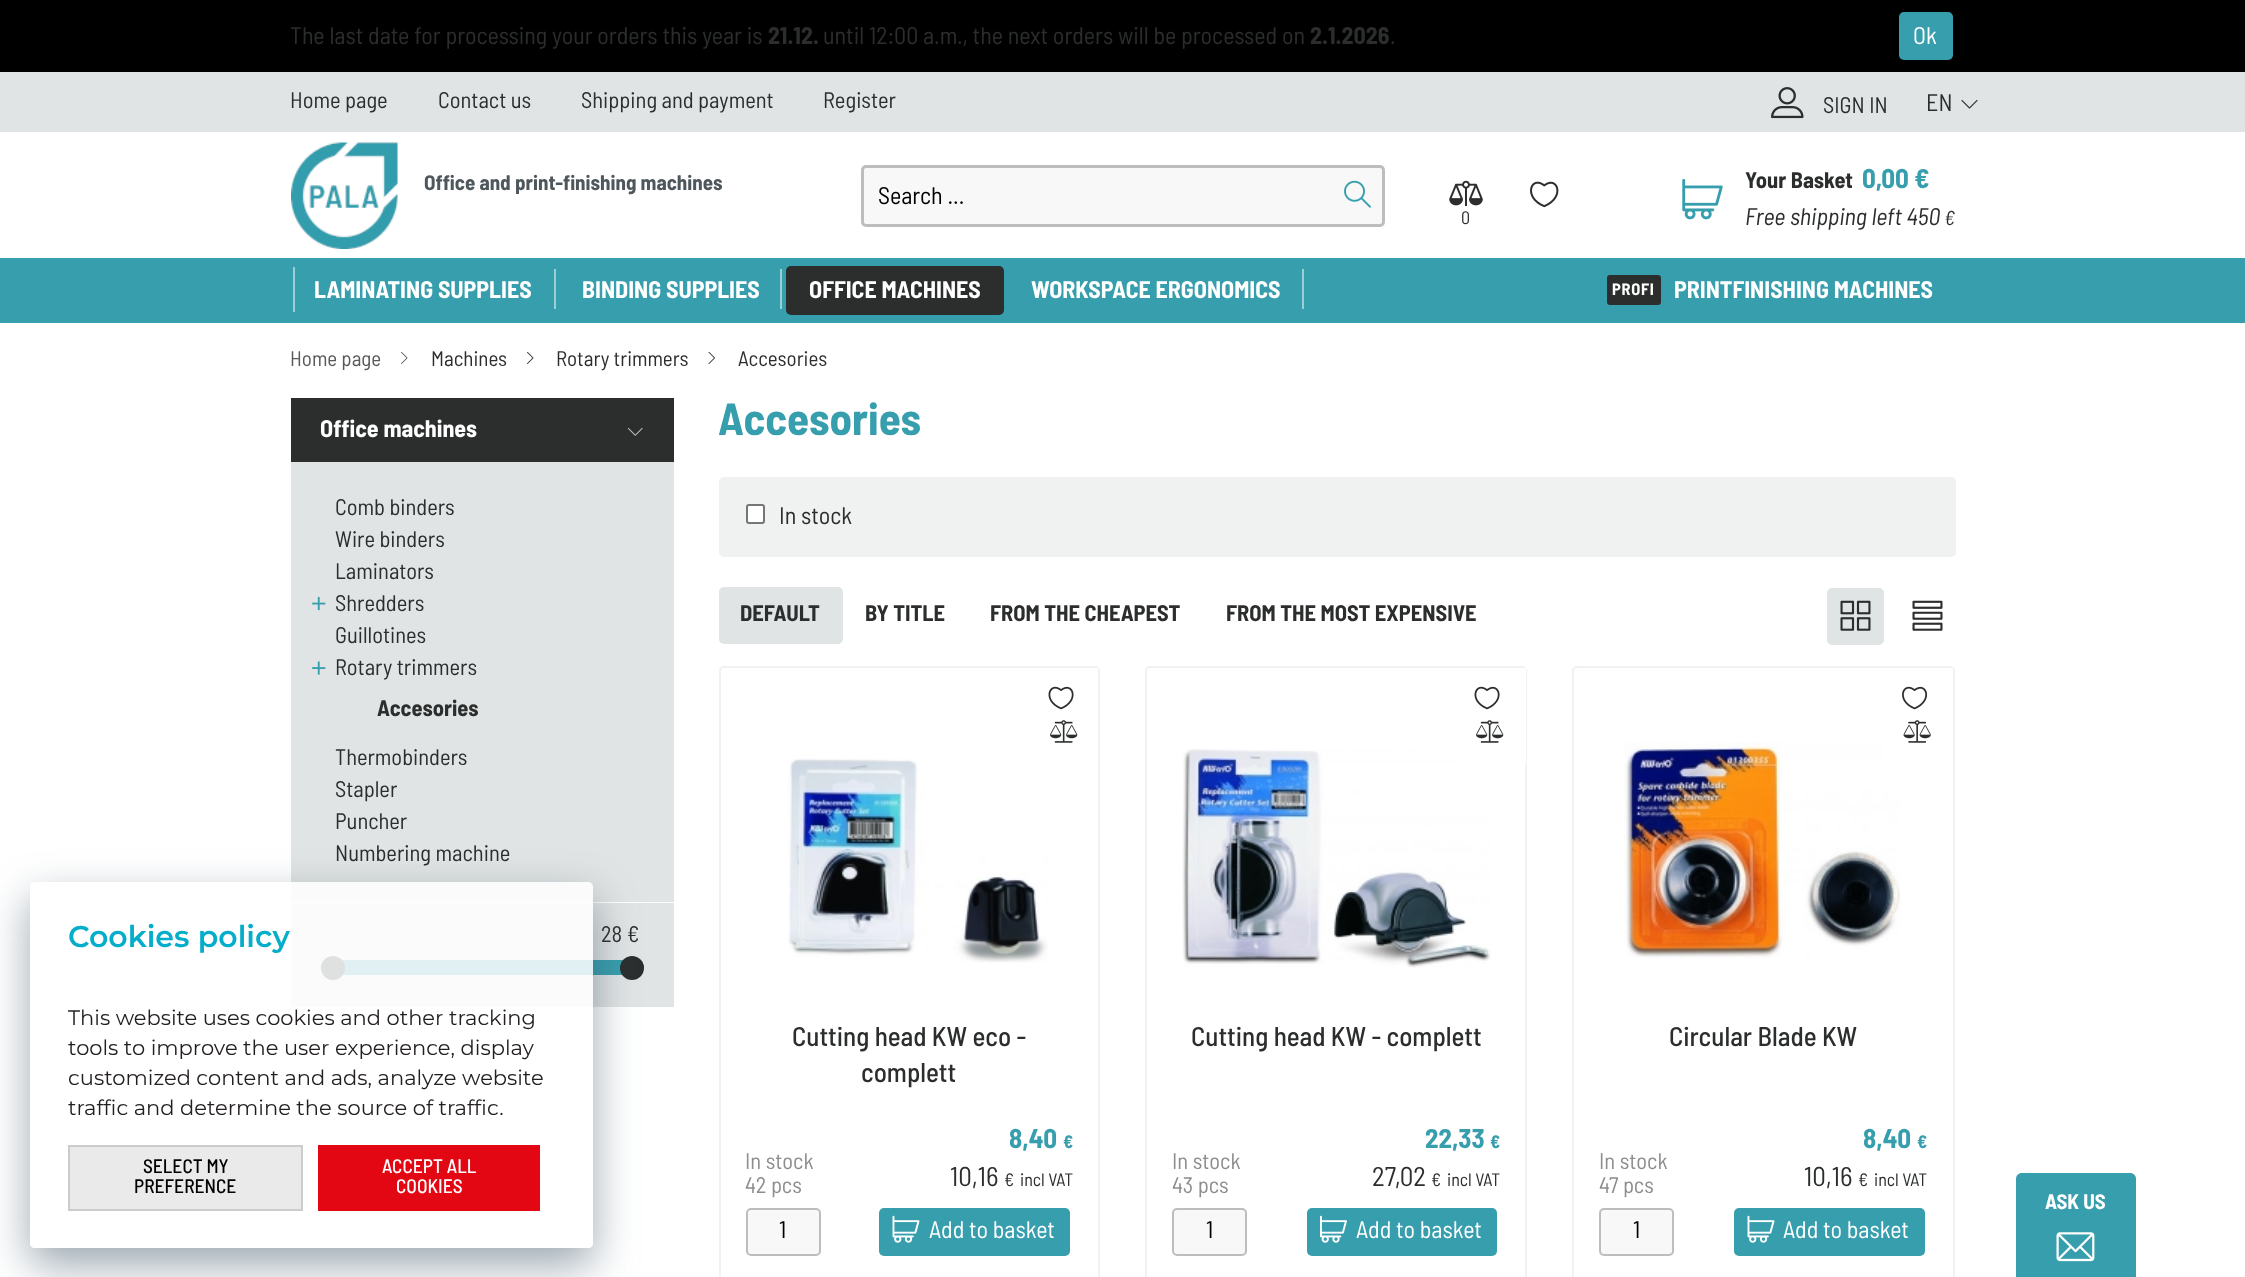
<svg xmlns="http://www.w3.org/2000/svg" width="2245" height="1277">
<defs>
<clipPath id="clip1"><path d="M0 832h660v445h-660zm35 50h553c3 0 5 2 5 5v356c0 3-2 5-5 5h-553c-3 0-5-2-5-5v-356c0-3 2-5 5-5z" clip-rule="evenodd"/></clipPath>
</defs>
<rect width="100%" height="100%" fill="#fff"/>
<rect width="2245" height="72" fill="#000"/>
<text x="290" y="44" style="font-family:Barlow Semi Condensed;font-size:24px;fill:#2c2e2e">The last date for processing your orders this year is</text>
<text x="768" y="44" style="font-family:Barlow Semi Condensed;font-size:24px;font-weight:bold;fill:#2c2e2e">21.12.</text>
<text x="823" y="44" style="font-family:Barlow Semi Condensed;font-size:24px;fill:#2c2e2e">until 12:00 a.m., the next orders will be processed on</text>
<text x="1310" y="44" style="font-family:Barlow Semi Condensed;font-size:24px;font-weight:bold;fill:#2c2e2e">2.1.2026</text>
<text x="1390" y="44" style="font-family:Barlow Semi Condensed;font-size:24px;fill:#2c2e2e">.</text>
<rect x="1899" y="12" width="54" height="48" rx="5" fill="#379ead"/>
<text x="1913" y="44" style="font-family:Barlow Semi Condensed;font-size:24px;fill:#fff">Ok</text>
<rect y="72" width="2245" height="60" fill="#e1e4e4"/>
<text x="290" y="108" style="font-family:Barlow Semi Condensed;font-size:22.5px;fill:#2c2e2e">Home page</text>
<text x="438" y="108" style="font-family:Barlow Semi Condensed;font-size:22.5px;fill:#2c2e2e">Contact us</text>
<text x="581" y="108" style="font-family:Barlow Semi Condensed;font-size:22.5px;fill:#2c2e2e">Shipping and payment</text>
<text x="823" y="108" style="font-family:Barlow Semi Condensed;font-size:22.5px;fill:#2c2e2e">Register</text>
<image x="1771" y="87" width="33" height="32" href="media/1.png"/>
<text x="1823" y="113" style="font-family:Barlow Semi Condensed;font-size:22.5px;fill:#2c2e2e">SIGN IN</text>
<text x="1926" y="111" style="font-family:Barlow Semi Condensed;font-size:24px;fill:#2c2e2e">EN</text>
<image x="1961" y="100" width="17" height="9" href="media/2.png"/>
<image x="291" y="142" width="107" height="107" href="media/3.png"/>
<text x="424" y="190" style="font-family:Barlow Semi Condensed;font-size:21px;font-weight:bold;fill:#4e575c">Office and print-finishing machines</text>
<rect x="862.5" y="166.5" width="521" height="59" rx="3.5" fill="#f8f8f8" stroke="#bcbebe" stroke-width="3"/>
<text x="878" y="204" style="font-family:Barlow Semi Condensed;font-size:24px;fill:#000">Search ...</text>
<image x="1344" y="180" width="27" height="28" href="media/4.png"/>
<image x="1530" y="181" width="29" height="27" href="media/5.png"/>
<image x="1682" y="178" width="41" height="42" href="media/6.png"/>
<text x="1745" y="188" style="font-family:Barlow Semi Condensed;font-size:22.5px;font-weight:bold;fill:#2c2e2e">Your Basket</text>
<text x="1862" y="188" style="font-family:Barlow Semi Condensed;font-size:27px;font-weight:bold;fill:#379ead">0,00 €</text>
<text x="1745" y="225" style="font-family:Barlow Semi Condensed;font-size:24px;font-style:italic;fill:#2c2e2e">Free shipping left 450</text>
<text x="1944" y="225" style="font-family:Barlow Semi Condensed;font-size:20px;font-style:italic;fill:#2c2e2e">€</text>
<image x="1449" y="180" width="34" height="27" href="media/7.png"/>
<rect x="1455" y="206" width="23" height="22" rx="11" fill="#fff"/>
<text x="1461" y="224" style="font-family:Barlow Semi Condensed;font-size:18px;fill:#2c2e2e">0</text>
<rect y="258" width="2245" height="65" fill="#379ead"/>
<rect x="293" y="267" width="2" height="45" fill="#9cced5"/>
<text x="314" y="298" style="font-family:Barlow Semi Condensed;font-size:24px;font-weight:bold;fill:#fff">LAMINATING SUPPLIES</text>
<rect x="554" y="269" width="2" height="40" fill="#9cced5"/>
<text x="582" y="298" style="font-family:Barlow Semi Condensed;font-size:24px;font-weight:bold;fill:#fff">BINDING SUPPLIES</text>
<rect x="780" y="269" width="2" height="40" fill="#9cced5"/>
<rect x="786" y="266" width="218" height="49" rx="5" fill="#2c2e2e"/>
<text x="809" y="298" style="font-family:Barlow Semi Condensed;font-size:24px;font-weight:bold;fill:#fff">OFFICE MACHINES</text>
<text x="1031" y="298" style="font-family:Barlow Semi Condensed;font-size:24px;font-weight:bold;fill:#fff">WORKSPACE ERGONOMICS</text>
<rect x="1302" y="269" width="2" height="40" fill="#9cced5"/>
<rect x="1607" y="275" width="54" height="30" rx="3" fill="#2c2e2e"/>
<text x="1612" y="295" style="font-family:Barlow Semi Condensed;font-size:16.5px;font-weight:bold;letter-spacing:0.75px;fill:#fff">PROFI</text>
<text x="1674" y="298" style="font-family:Barlow Semi Condensed;font-size:24px;font-weight:bold;fill:#fff">PRINTFINISHING MACHINES</text>
<text x="290" y="366" style="font-family:Barlow Semi Condensed;font-size:21px;fill:#585959">Home page</text>
<image x="401" y="351" width="7" height="13" href="media/8.png"/>
<text x="431" y="366" style="font-family:Barlow Semi Condensed;font-size:21px;fill:#2c2e2e">Machines</text>
<image x="527" y="351" width="7" height="13" href="media/9.png"/>
<text x="556" y="366" style="font-family:Barlow Semi Condensed;font-size:21px;fill:#2c2e2e">Rotary trimmers</text>
<image x="708" y="351" width="7" height="13" href="media/10.png"/>
<text x="738" y="366" style="font-family:Barlow Semi Condensed;font-size:21px;fill:#2c2e2e">Accesories</text>
<rect x="291" y="462" width="383" height="440" fill="#e1e4e4"/>
<rect x="291" y="398" width="383" height="64" fill="#2c2e2e"/>
<text x="320" y="437" style="font-family:Barlow Semi Condensed;font-size:24px;font-weight:bold;fill:#fff">Office machines</text>
<image x="627" y="427" width="16" height="9" href="media/11.png"/>
<text x="335" y="515" style="font-family:Barlow Semi Condensed;font-size:22.5px;fill:#2c2e2e">Comb binders</text>
<text x="335" y="547" style="font-family:Barlow Semi Condensed;font-size:22.5px;fill:#2c2e2e">Wire binders</text>
<text x="335" y="579" style="font-family:Barlow Semi Condensed;font-size:22.5px;fill:#2c2e2e">Laminators</text>
<image x="312" y="597" width="14" height="14" href="media/12.png"/>
<text x="335" y="611" style="font-family:Barlow Semi Condensed;font-size:22.5px;fill:#2c2e2e">Shredders</text>
<text x="335" y="643" style="font-family:Barlow Semi Condensed;font-size:22.5px;fill:#2c2e2e">Guillotines</text>
<image x="312" y="661" width="14" height="14" href="media/13.png"/>
<text x="335" y="675" style="font-family:Barlow Semi Condensed;font-size:22.5px;fill:#2c2e2e">Rotary trimmers</text>
<text x="377" y="716" style="font-family:Barlow Semi Condensed;font-size:22.5px;font-weight:bold;fill:#2c2e2e">Accesories</text>
<text x="335" y="765" style="font-family:Barlow Semi Condensed;font-size:22.5px;fill:#2c2e2e">Thermobinders</text>
<text x="335" y="797" style="font-family:Barlow Semi Condensed;font-size:22.5px;fill:#2c2e2e">Stapler</text>
<text x="335" y="829" style="font-family:Barlow Semi Condensed;font-size:22.5px;fill:#2c2e2e">Puncher</text>
<text x="335" y="861" style="font-family:Barlow Semi Condensed;font-size:22.5px;fill:#2c2e2e">Numbering machine</text>
<rect x="291" y="903" width="383" height="104" fill="#e1e4e4"/>
<text x="601" y="942" style="font-family:Barlow Semi Condensed;font-size:22.5px;fill:#2c2e2e">28 €</text>
<rect x="321" y="960" width="323" height="15" rx="7.5" fill="#379ead"/>
<circle cx="333" cy="968" r="12" fill="#2c2e2e"/>
<circle cx="632" cy="968" r="12" fill="#2c2e2e"/>
<text x="718" y="435" style="font-family:Barlow Semi Condensed;font-size:45px;font-weight:bold;fill:#379ead">Accesories</text>
<rect x="719" y="477" width="1237" height="80" rx="5" fill="#f0f1f1"/>
<rect x="747" y="505" width="17" height="18" rx="2" fill="#fff" stroke="#767676" stroke-width="2"/>
<text x="779" y="524" style="font-family:Barlow Semi Condensed;font-size:24px;fill:#2c2e2e">In stock</text>
<rect x="719" y="587" width="124" height="57" rx="5" fill="#e1e4e4"/>
<text x="740" y="621" style="font-family:Barlow Semi Condensed;font-size:22.5px;font-weight:bold;fill:#2c2e2e">DEFAULT</text>
<text x="865" y="621" style="font-family:Barlow Semi Condensed;font-size:22.5px;font-weight:bold;fill:#2c2e2e">BY TITLE</text>
<text x="990" y="621" style="font-family:Barlow Semi Condensed;font-size:22.5px;font-weight:bold;fill:#2c2e2e">FROM THE CHEAPEST</text>
<text x="1226" y="621" style="font-family:Barlow Semi Condensed;font-size:22.5px;font-weight:bold;fill:#2c2e2e">FROM THE MOST EXPENSIVE</text>
<rect x="1827" y="588" width="57" height="57" rx="5" fill="#e1e4e4"/>
<image x="1840" y="600" width="31" height="31" href="media/14.png"/>
<image x="1912" y="600" width="31" height="31" href="media/15.png"/>
<rect x="720" y="667" width="379" height="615" rx="4" fill="none" stroke="#f0f1f1" stroke-width="2"/>
<image x="788" y="758" width="260" height="205" href="media/18.png"/>
<path d="M1028 668h70v97h-65c-3 0-5-2-5-5z" fill="#fff"/>
<image x="1048" y="686" width="26" height="24" href="media/16.png"/>
<image x="1050" y="720" width="28" height="23" href="media/17.png"/>
<text x="792" y="1046" style="font-family:Barlow Semi Condensed;font-size:27px;font-weight:500;fill:#2c2e2e">Cutting head KW eco -</text>
<text x="861" y="1082" style="font-family:Barlow Semi Condensed;font-size:27px;font-weight:500;fill:#2c2e2e">complett</text>
<text x="745" y="1169" style="font-family:Barlow Semi Condensed;font-size:22.5px;fill:#8c8e8e">In stock</text>
<text x="745" y="1193" style="font-family:Barlow Semi Condensed;font-size:22.5px;fill:#8c8e8e">42 pcs</text>
<text x="1009" y="1148" style="font-family:Barlow Semi Condensed;font-size:27px;font-weight:bold;fill:#379ead">8,40</text>
<text x="1063" y="1148" style="font-family:Barlow Semi Condensed;font-size:18px;font-weight:bold;fill:#379ead">€</text>
<text x="950" y="1186" style="font-family:Barlow Semi Condensed;font-size:27px;fill:#2c2e2e">10,16</text>
<text x="1004" y="1186" style="font-family:Barlow Semi Condensed;font-size:18px;fill:#2c2e2e">€</text>
<text x="1020" y="1186" style="font-family:Barlow Semi Condensed;font-size:18px;fill:#2c2e2e">incl VAT</text>
<rect x="747" y="1209" width="73" height="46" rx="4" fill="#f8f8f8" stroke="#bcbebe" stroke-width="2"/>
<text x="779" y="1238" style="font-family:Barlow Semi Condensed;font-size:24px;fill:#000">1</text>
<rect x="879" y="1208" width="191" height="48" rx="5" fill="#379ead"/>
<image x="892" y="1215" width="28" height="28" href="media/19.png"/>
<text x="929" y="1238" style="font-family:Barlow Semi Condensed;font-size:24px;fill:#fff">Add to basket</text>
<rect x="1146" y="667" width="380" height="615" rx="4" fill="none" stroke="#f0f1f1" stroke-width="2"/>
<image x="1182" y="749" width="309" height="219" href="media/20.png"/>
<path d="M1455 668h71v97h-66c-3 0-5-2-5-5z" fill="#fff"/>
<image x="1474" y="686" width="26" height="24" href="media/16.png"/>
<image x="1476" y="720" width="28" height="23" href="media/17.png"/>
<text x="1191" y="1046" style="font-family:Barlow Semi Condensed;font-size:27px;font-weight:500;fill:#2c2e2e">Cutting head KW - complett</text>
<text x="1172" y="1169" style="font-family:Barlow Semi Condensed;font-size:22.5px;fill:#8c8e8e">In stock</text>
<text x="1172" y="1193" style="font-family:Barlow Semi Condensed;font-size:22.5px;fill:#8c8e8e">43 pcs</text>
<text x="1425" y="1148" style="font-family:Barlow Semi Condensed;font-size:27px;font-weight:bold;fill:#379ead">22,33</text>
<text x="1490" y="1148" style="font-family:Barlow Semi Condensed;font-size:18px;font-weight:bold;fill:#379ead">€</text>
<text x="1372" y="1186" style="font-family:Barlow Semi Condensed;font-size:27px;fill:#2c2e2e">27,02</text>
<text x="1431" y="1186" style="font-family:Barlow Semi Condensed;font-size:18px;fill:#2c2e2e">€</text>
<text x="1447" y="1186" style="font-family:Barlow Semi Condensed;font-size:18px;fill:#2c2e2e">incl VAT</text>
<rect x="1173" y="1209" width="73" height="46" rx="4" fill="#f8f8f8" stroke="#bcbebe" stroke-width="2"/>
<text x="1206" y="1238" style="font-family:Barlow Semi Condensed;font-size:24px;fill:#000">1</text>
<rect x="1307" y="1208" width="190" height="48" rx="5" fill="#379ead"/>
<image x="1320" y="1215" width="27" height="28" href="media/21.png"/>
<text x="1356" y="1238" style="font-family:Barlow Semi Condensed;font-size:24px;fill:#fff">Add to basket</text>
<rect x="1573" y="667" width="381" height="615" rx="4" fill="none" stroke="#f0f1f1" stroke-width="2"/>
<image x="1624" y="742" width="277" height="216" href="media/24.png"/>
<path d="M1883 668h70v97h-65c-3 0-5-2-5-5z" fill="#fff"/>
<image x="1902" y="686" width="26" height="24" href="media/22.png"/>
<image x="1903" y="720" width="28" height="23" href="media/23.png"/>
<text x="1669" y="1046" style="font-family:Barlow Semi Condensed;font-size:27px;font-weight:500;fill:#2c2e2e">Circular Blade KW</text>
<text x="1599" y="1169" style="font-family:Barlow Semi Condensed;font-size:22.5px;fill:#8c8e8e">In stock</text>
<text x="1599" y="1193" style="font-family:Barlow Semi Condensed;font-size:22.5px;fill:#8c8e8e">47 pcs</text>
<text x="1863" y="1148" style="font-family:Barlow Semi Condensed;font-size:27px;font-weight:bold;fill:#379ead">8,40</text>
<text x="1917" y="1148" style="font-family:Barlow Semi Condensed;font-size:18px;font-weight:bold;fill:#379ead">€</text>
<text x="1804" y="1186" style="font-family:Barlow Semi Condensed;font-size:27px;fill:#2c2e2e">10,16</text>
<text x="1858" y="1186" style="font-family:Barlow Semi Condensed;font-size:18px;fill:#2c2e2e">€</text>
<text x="1874" y="1186" style="font-family:Barlow Semi Condensed;font-size:18px;fill:#2c2e2e">incl VAT</text>
<rect x="1600" y="1209" width="73" height="46" rx="4" fill="#f8f8f8" stroke="#bcbebe" stroke-width="2"/>
<text x="1633" y="1238" style="font-family:Barlow Semi Condensed;font-size:24px;fill:#000">1</text>
<rect x="1734" y="1208" width="191" height="48" rx="5" fill="#379ead"/>
<image x="1747" y="1215" width="28" height="28" href="media/19.png"/>
<text x="1783" y="1238" style="font-family:Barlow Semi Condensed;font-size:24px;fill:#fff">Add to basket</text>
<g clip-path="url(#clip1)">
<rect x="30" y="899" width="563" height="366" rx="5" fill="#38506180" filter="blur(22px)"/>
</g>
<rect x="30" y="882" width="563" height="366" rx="5" fill="#ffffffd9"/>
<text x="68" y="947" style="font-family:Montserrat;font-size:30px;font-weight:600;fill:#04adc9">Cookies policy</text>
<text x="68" y="1025" style="font-family:Montserrat;font-size:21px;fill:#231f20">This website uses cookies and other tracking</text>
<text x="68" y="1055" style="font-family:Montserrat;font-size:21px;fill:#231f20">tools to improve the user experience, display</text>
<text x="68" y="1085" style="font-family:Montserrat;font-size:21px;fill:#231f20">customized content and ads, analyze website</text>
<text x="68" y="1115" style="font-family:Montserrat;font-size:21px;fill:#231f20">traffic and determine the source of traffic.</text>
<rect x="69" y="1146" width="233" height="64" fill="#eaeaea" stroke="#ccc" stroke-width="2"/>
<text x="143" y="1173" style="font-family:Barlow Semi Condensed;font-size:19.5px;font-weight:500;fill:#000">SELECT MY</text>
<text x="134" y="1193" style="font-family:Barlow Semi Condensed;font-size:19.5px;font-weight:500;fill:#000">PREFERENCE</text>
<rect x="318" y="1145" width="222" height="66" fill="#e30613"/>
<text x="382" y="1173" style="font-family:Barlow Semi Condensed;font-size:19.5px;font-weight:500;fill:#fff">ACCEPT ALL</text>
<text x="396" y="1193" style="font-family:Barlow Semi Condensed;font-size:19.5px;font-weight:500;fill:#fff">COOKIES</text>
<path d="M2022 1173h108c3.5 0 6 2.5 6 6v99h-120v-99c0-3.5 2.5-6 6-6z" fill="#379ead"/>
<text x="2045" y="1209" style="font-family:Barlow Semi Condensed;font-size:21px;font-weight:bold;fill:#fff">ASK US</text>
<image x="2056" y="1232" width="39" height="30" href="media/25.png"/>
</svg>
